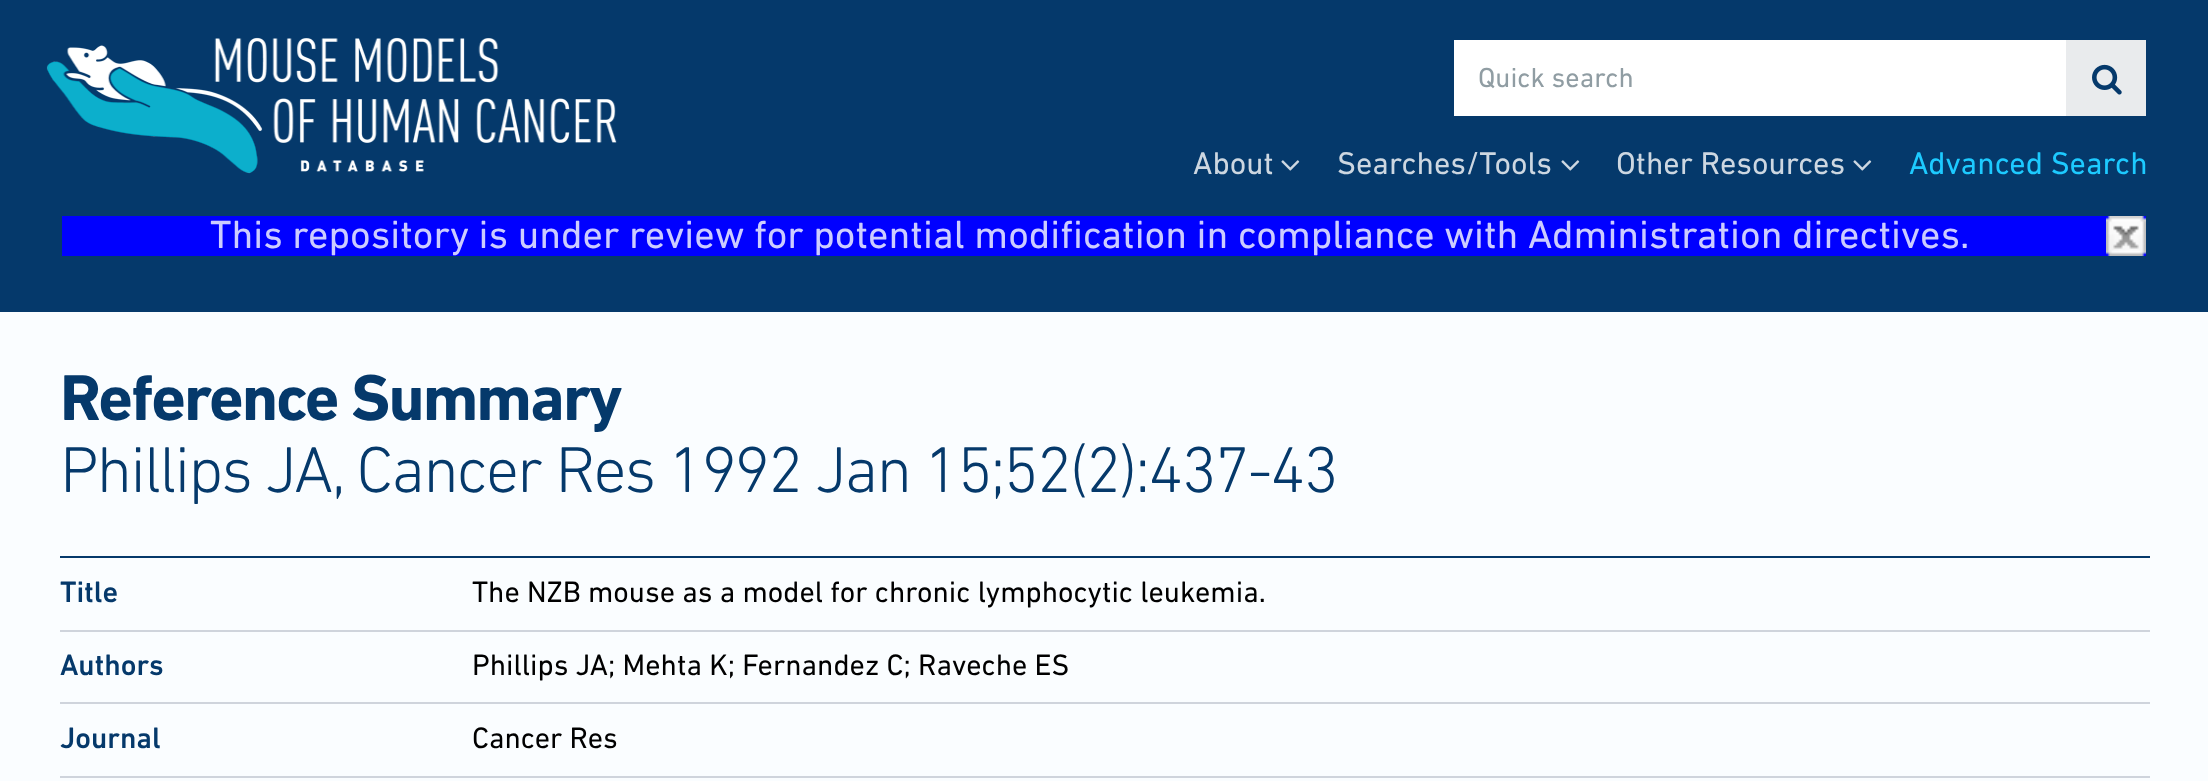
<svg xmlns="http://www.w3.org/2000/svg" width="2208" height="781">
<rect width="100%" height="100%" fill="#fafdff"/>
<rect width="2208" height="312" fill="#05396b"/>
<image x="46" y="37" width="571" height="137" href="media/1.png"/>
<rect x="1454" y="40" width="612" height="76" fill="#fff"/>
<text x="1478" y="87" style="font-family:DIN Next;font-size:28px;fill:#909da3">Quick search</text>
<rect x="2066" y="40" width="80" height="76" fill="#e9ebed"/>
<image x="2092" y="64" width="30" height="31" href="media/2.png"/>
<text x="1193" y="174" style="font-family:DIN Next;font-size:32px;fill:#cdd7e1">About</text>
<image x="1281" y="160" width="19" height="11" href="media/3.png"/>
<text x="1337" y="174" style="font-family:DIN Next;font-size:32px;fill:#cdd7e1">Searches/Tools</text>
<image x="1561" y="160" width="19" height="11" href="media/3.png"/>
<text x="1616" y="174" style="font-family:DIN Next;font-size:32px;fill:#cdd7e1">Other Resources</text>
<image x="1853" y="160" width="19" height="11" href="media/3.png"/>
<text x="1909" y="174" style="font-family:DIN Next;font-size:32px;fill:#1dcaff">Advanced Search</text>
<rect x="62" y="216" width="2084" height="40" fill="#00f"/>
<text x="210" y="248" style="font-family:DIN Next;font-size:40px;fill:#ccf">This repository is under review for potential modification in compliance with Administration directives.</text>
<image x="2106" y="216" width="40" height="40" href="media/4.png"/>
<text x="60" y="420" style="font-family:DIN Next;font-size:66px;font-weight:bold;letter-spacing:-2px;fill:#05396b">Reference Summary</text>
<text x="60" y="492" style="font-family:DIN Next;font-size:66px;font-weight:300;letter-spacing:-2px;fill:#05396b">Phillips JA, Cancer Res 1992 Jan 15;52(2):437-43</text>
<text x="60" y="602" style="font-family:DIN Next;font-size:30px;font-weight:500;fill:#05396b">Title</text>
<rect x="60" y="556" width="2090" height="2" fill="#05396b"/>
<text x="472" y="602" style="font-family:DIN Next;font-size:30px;fill:#000">The NZB mouse as a model for chronic lymphocytic leukemia.</text>
<text x="60" y="675" style="font-family:DIN Next;font-size:30px;font-weight:500;fill:#05396b">Authors</text>
<rect x="60" y="630" width="2090" height="2" fill="#cfd4dc"/>
<text x="472" y="675" style="font-family:DIN Next;font-size:30px;fill:#000">Phillips JA; Mehta K; Fernandez C; Raveche ES</text>
<text x="60" y="748" style="font-family:DIN Next;font-size:30px;font-weight:500;fill:#05396b">Journal</text>
<rect x="60" y="702" width="2090" height="2" fill="#cfd4dc"/>
<text x="472" y="748" style="font-family:DIN Next;font-size:30px;fill:#000">Cancer Res</text>
<rect x="60" y="776" width="2090" height="2" fill="#cfd4dc"/>
</svg>
